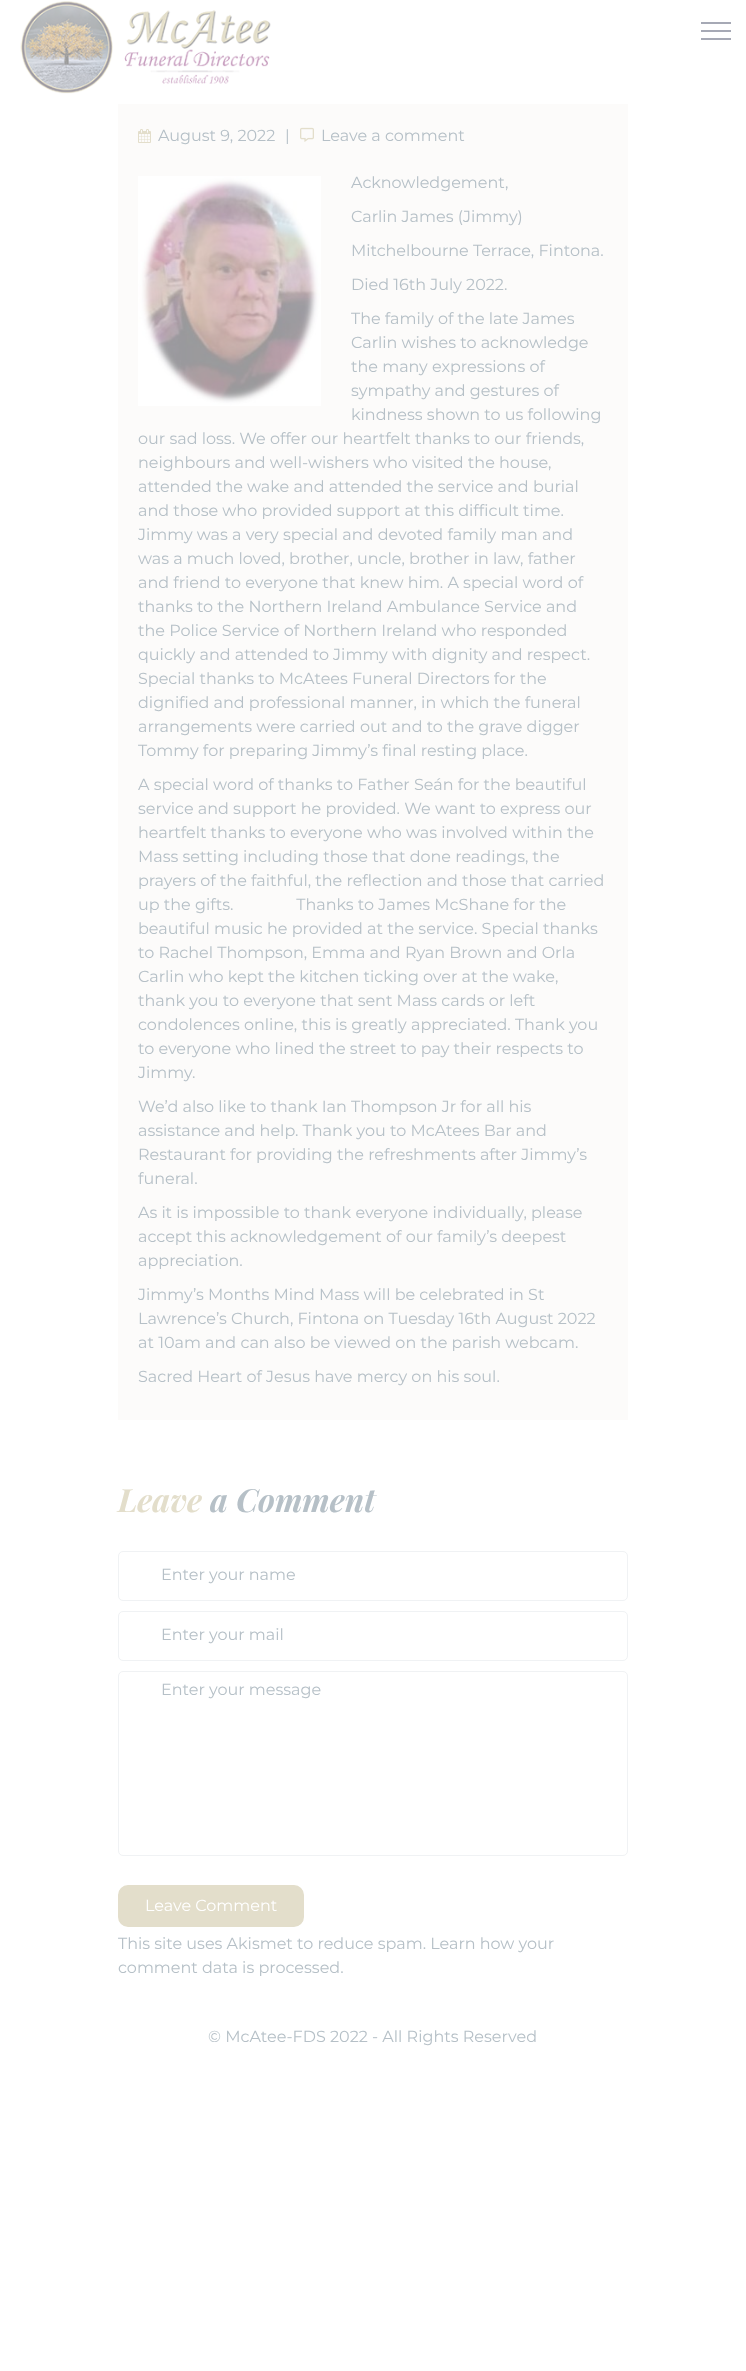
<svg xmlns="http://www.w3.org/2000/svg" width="746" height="2371">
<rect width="100%" height="100%" fill="#fff"/>
<image x="20" y="1" width="251" height="93" href="media/1.png"/>
<rect x="701" y="22" width="30" height="2" fill="#a6a9b5"/>
<rect x="701" y="38" width="30" height="2" fill="#a6a9b5"/>
<rect x="701" y="30" width="30" height="2" fill="#a6a9b5"/>
<rect x="118" y="104" width="510" height="1316" fill="#fcfbfa"/>
<image x="138" y="129" width="13" height="14" href="media/2.png"/>
<text x="158" y="141" style="font-family:Montserrat;font-size:16px;fill:#b6c0c7">August 9, 2022</text>
<text x="285" y="141" style="font-family:Montserrat;font-size:16px;fill:#b6c0c7">|</text>
<image x="300" y="127" width="14" height="15" href="media/3.png"/>
<text x="321" y="141" style="font-family:Montserrat;font-size:16px;fill:#b6c0c7">Leave a comment</text>
<image x="138" y="176" width="183" height="230" href="media/4.png"/>
<text x="351" y="188" style="font-family:Montserrat;font-size:16px;fill:#b6c0c7">Acknowledgement,</text>
<text x="351" y="222" style="font-family:Montserrat;font-size:16px;fill:#b6c0c7">Carlin James (Jimmy)</text>
<text x="351" y="256" style="font-family:Montserrat;font-size:16px;fill:#b6c0c7">Mitchelbourne Terrace, Fintona.</text>
<text x="351" y="290" style="font-family:Montserrat;font-size:16px;fill:#b6c0c7">Died 16th July 2022.</text>
<text x="351" y="324" style="font-family:Montserrat;font-size:16px;fill:#b6c0c7">The family of the late James</text>
<text x="351" y="348" style="font-family:Montserrat;font-size:16px;fill:#b6c0c7">Carlin wishes to acknowledge</text>
<text x="351" y="372" style="font-family:Montserrat;font-size:16px;fill:#b6c0c7">the many expressions of</text>
<text x="351" y="396" style="font-family:Montserrat;font-size:16px;fill:#b6c0c7">sympathy and gestures of</text>
<text x="351" y="420" style="font-family:Montserrat;font-size:16px;fill:#b6c0c7">kindness shown to us following</text>
<text x="138" y="444" style="font-family:Montserrat;font-size:16px;fill:#b6c0c7">our sad loss. We offer our heartfelt thanks to our friends,</text>
<text x="138" y="468" style="font-family:Montserrat;font-size:16px;fill:#b6c0c7">neighbours and well-wishers who visited the house,</text>
<text x="138" y="492" style="font-family:Montserrat;font-size:16px;fill:#b6c0c7">attended the wake and attended the service and burial</text>
<text x="138" y="516" style="font-family:Montserrat;font-size:16px;fill:#b6c0c7">and those who provided support at this difficult time.</text>
<text x="138" y="540" style="font-family:Montserrat;font-size:16px;fill:#b6c0c7">Jimmy was a very special and devoted family man and</text>
<text x="138" y="564" style="font-family:Montserrat;font-size:16px;fill:#b6c0c7">was a much loved, brother, uncle, brother in law, father</text>
<text x="138" y="588" style="font-family:Montserrat;font-size:16px;fill:#b6c0c7">and friend to everyone that knew him. A special word of</text>
<text x="138" y="612" style="font-family:Montserrat;font-size:16px;fill:#b6c0c7">thanks to the Northern Ireland Ambulance Service and</text>
<text x="138" y="636" style="font-family:Montserrat;font-size:16px;fill:#b6c0c7">the Police Service of Northern Ireland who responded</text>
<text x="138" y="660" style="font-family:Montserrat;font-size:16px;fill:#b6c0c7">quickly and attended to Jimmy with dignity and respect.</text>
<text x="138" y="684" style="font-family:Montserrat;font-size:16px;fill:#b6c0c7">Special thanks to McAtees Funeral Directors for the</text>
<text x="138" y="708" style="font-family:Montserrat;font-size:16px;fill:#b6c0c7">dignified and professional manner, in which the funeral</text>
<text x="138" y="732" style="font-family:Montserrat;font-size:16px;fill:#b6c0c7">arrangements were carried out and to the grave digger</text>
<text x="138" y="756" style="font-family:Montserrat;font-size:16px;fill:#b6c0c7">Tommy for preparing Jimmy’s final resting place.</text>
<text x="138" y="790" style="font-family:Montserrat;font-size:16px;fill:#b6c0c7">A special word of thanks to Father Seán for the beautiful</text>
<text x="138" y="814" style="font-family:Montserrat;font-size:16px;fill:#b6c0c7">service and support he provided. We want to express our</text>
<text x="138" y="838" style="font-family:Montserrat;font-size:16px;fill:#b6c0c7">heartfelt thanks to everyone who was involved within the</text>
<text x="138" y="862" style="font-family:Montserrat;font-size:16px;fill:#b6c0c7">Mass setting including those that done readings, the</text>
<text x="138" y="886" style="font-family:Montserrat;font-size:16px;fill:#b6c0c7">prayers of the faithful, the reflection and those that carried</text>
<text x="138" y="910" style="font-family:Montserrat;font-size:16px;fill:#b6c0c7" xml:space="preserve">up the gifts.               Thanks to James McShane for the</text>
<text x="138" y="934" style="font-family:Montserrat;font-size:16px;fill:#b6c0c7">beautiful music he provided at the service. Special thanks</text>
<text x="138" y="958" style="font-family:Montserrat;font-size:16px;fill:#b6c0c7">to Rachel Thompson, Emma and Ryan Brown and Orla</text>
<text x="138" y="982" style="font-family:Montserrat;font-size:16px;fill:#b6c0c7">Carlin who kept the kitchen ticking over at the wake,</text>
<text x="138" y="1006" style="font-family:Montserrat;font-size:16px;fill:#b6c0c7">thank you to everyone that sent Mass cards or left</text>
<text x="138" y="1030" style="font-family:Montserrat;font-size:16px;fill:#b6c0c7">condolences online, this is greatly appreciated. Thank you</text>
<text x="138" y="1054" style="font-family:Montserrat;font-size:16px;fill:#b6c0c7">to everyone who lined the street to pay their respects to</text>
<text x="138" y="1078" style="font-family:Montserrat;font-size:16px;fill:#b6c0c7">Jimmy.</text>
<text x="138" y="1112" style="font-family:Montserrat;font-size:16px;fill:#b6c0c7">We’d also like to thank Ian Thompson Jr for all his</text>
<text x="138" y="1136" style="font-family:Montserrat;font-size:16px;fill:#b6c0c7">assistance and help. Thank you to McAtees Bar and</text>
<text x="138" y="1160" style="font-family:Montserrat;font-size:16px;fill:#b6c0c7">Restaurant for providing the refreshments after Jimmy’s</text>
<text x="138" y="1184" style="font-family:Montserrat;font-size:16px;fill:#b6c0c7">funeral.</text>
<text x="138" y="1218" style="font-family:Montserrat;font-size:16px;fill:#b6c0c7">As it is impossible to thank everyone individually, please</text>
<text x="138" y="1242" style="font-family:Montserrat;font-size:16px;fill:#b6c0c7">accept this acknowledgement of our family’s deepest</text>
<text x="138" y="1266" style="font-family:Montserrat;font-size:16px;fill:#b6c0c7">appreciation.</text>
<text x="138" y="1300" style="font-family:Montserrat;font-size:16px;fill:#b6c0c7">Jimmy’s Months Mind Mass will be celebrated in St</text>
<text x="138" y="1324" style="font-family:Montserrat;font-size:16px;fill:#b6c0c7">Lawrence’s Church, Fintona on Tuesday 16th August 2022</text>
<text x="138" y="1348" style="font-family:Montserrat;font-size:16px;fill:#b6c0c7">at 10am and can also be viewed on the parish webcam.</text>
<text x="138" y="1382" style="font-family:Montserrat;font-size:16px;fill:#b6c0c7">Sacred Heart of Jesus have mercy on his soul.</text>
<text x="118" y="1512" style="font-family:Playfair Display;font-size:32px;font-weight:bold;font-style:italic;fill:#e3decb">Leave</text>
<text x="210" y="1512" style="font-family:Playfair Display;font-size:32px;font-weight:bold;font-style:italic;fill:#b6c0c7">a Comment</text>
<rect x="118.5" y="1551.5" width="509" height="49" rx="4.5" fill="none" stroke="#f0f2f4"/>
<text x="161" y="1580" style="font-family:Montserrat;font-size:16px;fill:#b6c0c7">Enter your name</text>
<rect x="118.5" y="1611.5" width="509" height="49" rx="4.5" fill="none" stroke="#f0f2f4"/>
<text x="161" y="1640" style="font-family:Montserrat;font-size:16px;fill:#b6c0c7">Enter your mail</text>
<rect x="118.5" y="1671.5" width="509" height="184" rx="4.5" fill="none" stroke="#f0f2f4"/>
<text x="161" y="1695" style="font-family:Montserrat;font-size:16px;fill:#b6c0c7">Enter your message</text>
<rect x="119" y="1886" width="184" height="40" rx="9" fill="#e3decb" stroke="#e3decb" stroke-width="2"/>
<text x="145" y="1911" style="font-family:Montserrat;font-size:16px;fill:#fff">Leave Comment</text>
<text x="118" y="1949" style="font-family:Montserrat;font-size:16px;fill:#b6c0c7">This site uses Akismet to reduce spam. Learn how your</text>
<text x="118" y="1973" style="font-family:Montserrat;font-size:16px;fill:#b6c0c7">comment data is processed.</text>
<text x="208" y="2042" style="font-family:Montserrat;font-size:16px;fill:#b6c0c7">© McAtee-FDS 2022 - All Rights Reserved</text>
</svg>
